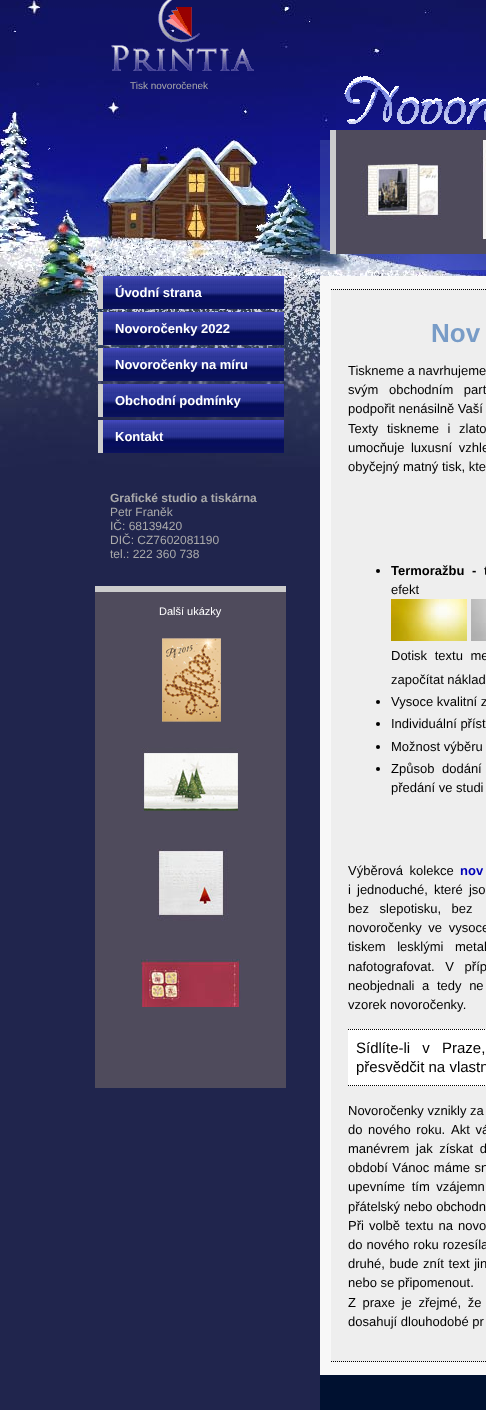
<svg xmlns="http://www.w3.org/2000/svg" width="486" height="1410">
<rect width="100%" height="100%" fill="#20254d"/>
<image x="0" y="0" width="486" height="467" href="media/1.png"/>
<image x="111" y="0" width="143" height="71" href="media/2.png"/>
<text x="130" y="89" style="font-family:Liberation Sans;font-size:10px;fill:#aaa">Tisk novoročenek</text>
<image x="344" y="76" width="142" height="48" href="media/3.png"/>
<rect x="320" y="140" width="166" height="130" fill="#8cabd033"/>
<rect x="336" y="130" width="150" height="124" fill="#4f4b5c"/>
<rect x="330" y="130" width="6" height="124" fill="#ccc"/>
<image x="361" y="164" width="80" height="56" href="media/4.png"/>
<image x="480" y="140" width="6" height="100" href="media/5.png"/>
<image x="103" y="276" width="181" height="33" href="media/6.png"/>
<rect x="98" y="276" width="5" height="33" fill="#ccc"/>
<text x="115" y="297" style="font-family:Liberation Sans;font-size:13px;font-weight:bold;fill:#fff">Úvodní strana</text>
<image x="103" y="312" width="181" height="33" href="media/6.png"/>
<rect x="98" y="312" width="5" height="33" fill="#ccc"/>
<text x="115" y="333" style="font-family:Liberation Sans;font-size:13px;font-weight:bold;fill:#fff">Novoročenky 2022</text>
<image x="103" y="348" width="181" height="33" href="media/6.png"/>
<rect x="98" y="348" width="5" height="33" fill="#ccc"/>
<text x="115" y="369" style="font-family:Liberation Sans;font-size:13px;font-weight:bold;fill:#fff">Novoročenky na míru</text>
<image x="103" y="384" width="181" height="33" href="media/6.png"/>
<rect x="98" y="384" width="5" height="33" fill="#ccc"/>
<text x="115" y="405" style="font-family:Liberation Sans;font-size:13px;font-weight:bold;fill:#fff">Obchodní podmínky</text>
<image x="103" y="420" width="181" height="33" href="media/6.png"/>
<rect x="98" y="420" width="5" height="33" fill="#ccc"/>
<text x="115" y="441" style="font-family:Liberation Sans;font-size:13px;font-weight:bold;fill:#fff">Kontakt</text>
<rect x="320" y="276" width="166" height="1099" fill="#f8f8f8"/>
<rect x="331" y="289" width="155" height="1073" fill="#eee"/>
<path d="M331 289.5h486" fill="none" stroke="#000" stroke-dasharray="1 1"/>
<path d="M331 1361.5h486" fill="none" stroke="#000" stroke-dasharray="1 1"/>
<text x="431" y="342" style="font-family:Liberation Sans;font-size:26px;font-weight:bold;fill:#789cc7">Nov</text>
<text x="348" y="375" style="font-family:Liberation Sans;font-size:13px;fill:#000">Tiskneme a navrhujeme</text>
<text x="348" y="394" word-spacing="7" style="font-family:Liberation Sans;font-size:13px;fill:#000">svým obchodním part</text>
<text x="348" y="413" style="font-family:Liberation Sans;font-size:13px;fill:#000">podpořit nenásilně Vaší</text>
<text x="348" y="433" word-spacing="5" style="font-family:Liberation Sans;font-size:13px;fill:#000">Texty tiskneme i zlato</text>
<text x="348" y="452" word-spacing="3" style="font-family:Liberation Sans;font-size:13px;fill:#000">umocňuje luxusní vzhle</text>
<text x="348" y="471" style="font-family:Liberation Sans;font-size:13px;fill:#000">obyčejný matný tisk, kte</text>
<circle cx="378" cy="571" r="2" fill="#000"/>
<text x="391" y="575" word-spacing="4" style="font-family:Liberation Sans;font-size:13px;font-weight:bold;fill:#000">Termoražbu - t</text>
<text x="391" y="594" style="font-family:Liberation Sans;font-size:13px;fill:#000">efekt</text>
<image x="391" y="599" width="76" height="42" href="media/7.png"/>
<image x="471" y="599" width="15" height="42" href="media/8.png"/>
<text x="391" y="660" word-spacing="4" style="font-family:Liberation Sans;font-size:13px;fill:#000">Dotisk textu me</text>
<text x="391" y="684" style="font-family:Liberation Sans;font-size:13px;fill:#000">započítat náklad</text>
<circle cx="378" cy="702" r="2" fill="#000"/>
<text x="391" y="706" style="font-family:Liberation Sans;font-size:13px;fill:#000">Vysoce kvalitní z</text>
<circle cx="378" cy="724" r="2" fill="#000"/>
<text x="391" y="728" style="font-family:Liberation Sans;font-size:13px;fill:#000">Individuální příst</text>
<circle cx="378" cy="747" r="2" fill="#000"/>
<text x="391" y="751" style="font-family:Liberation Sans;font-size:13px;fill:#000">Možnost výběru</text>
<circle cx="378" cy="769" r="2" fill="#000"/>
<text x="391" y="773" word-spacing="4" style="font-family:Liberation Sans;font-size:13px;fill:#000">Způsob dodání</text>
<text x="391" y="792" style="font-family:Liberation Sans;font-size:13px;fill:#000">předání ve studi</text>
<text x="348" y="875" word-spacing="3" style="font-family:Liberation Sans;font-size:13px;fill:#000">Výběrová kolekce</text>
<text x="460" y="875" style="font-family:Liberation Sans;font-size:13px;font-weight:bold;fill:#0002b7">nov</text>
<text x="348" y="894" word-spacing="2.5" style="font-family:Liberation Sans;font-size:13px;fill:#000">i jednoduché, které jso</text>
<text x="348" y="913" word-spacing="7" style="font-family:Liberation Sans;font-size:13px;fill:#000">bez slepotisku, bez</text>
<text x="348" y="932" word-spacing="3" style="font-family:Liberation Sans;font-size:13px;fill:#000">novoročenky ve vysoce</text>
<text x="348" y="951" word-spacing="8" style="font-family:Liberation Sans;font-size:13px;fill:#000">tiskem lesklými metal</text>
<text x="348" y="971" word-spacing="7" style="font-family:Liberation Sans;font-size:13px;fill:#000">nafotografovat. V příp</text>
<text x="348" y="990" word-spacing="4" style="font-family:Liberation Sans;font-size:13px;fill:#000">neobjednali a tedy ne</text>
<text x="348" y="1009" style="font-family:Liberation Sans;font-size:13px;fill:#000">vzorek novoročenky.</text>
<rect x="348" y="1029" width="138" height="57" fill="#fff"/>
<path d="M348 1029.5h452" fill="none" stroke="#000" stroke-dasharray="1 1"/>
<path d="M348 1085.5h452" fill="none" stroke="#000" stroke-dasharray="1 1"/>
<text x="356" y="1053" word-spacing="8" style="font-family:Liberation Sans;font-size:15px;fill:#000">Sídlíte-li v Praze,</text>
<text x="356" y="1072" style="font-family:Liberation Sans;font-size:15px;fill:#000">přesvědčit na vlastn</text>
<text x="348" y="1115" style="font-family:Liberation Sans;font-size:13px;fill:#000">Novoročenky vznikly za</text>
<text x="348" y="1134" word-spacing="2" style="font-family:Liberation Sans;font-size:13px;fill:#000">do nového roku.</text>
<text x="451" y="1134" word-spacing="2" style="font-family:Liberation Sans;font-size:13px;fill:#000">Akt vá</text>
<text x="348" y="1153" word-spacing="3" style="font-family:Liberation Sans;font-size:13px;fill:#000">manévrem jak získat d</text>
<text x="348" y="1172" word-spacing="1" style="font-family:Liberation Sans;font-size:13px;fill:#000">období Vánoc máme sn</text>
<text x="348" y="1191" word-spacing="3" style="font-family:Liberation Sans;font-size:13px;fill:#000">upevníme tím vzájemn</text>
<text x="348" y="1211" style="font-family:Liberation Sans;font-size:13px;fill:#000">přátelský nebo obchodn</text>
<text x="348" y="1230" word-spacing="1.5" style="font-family:Liberation Sans;font-size:13px;fill:#000">Při volbě textu na novo</text>
<text x="348" y="1249" word-spacing="0.5" style="font-family:Liberation Sans;font-size:13px;fill:#000">do nového roku rozesíla</text>
<text x="348" y="1268" word-spacing="1" style="font-family:Liberation Sans;font-size:13px;fill:#000">druhé, bude znít text jin</text>
<text x="348" y="1287" style="font-family:Liberation Sans;font-size:13px;fill:#000">nebo se připomenout.</text>
<text x="348" y="1307" word-spacing="3" style="font-family:Liberation Sans;font-size:13px;fill:#000">Z praxe je zřejmé, že</text>
<text x="348" y="1326" style="font-family:Liberation Sans;font-size:13px;fill:#000">dosahují dlouhodobé pr</text>
<rect x="320" y="1375" width="166" height="35" fill="#001130"/>
<text x="110" y="502" style="font-family:Liberation Sans;font-size:12px;font-weight:bold;fill:#aaa">Grafické studio a tiskárna</text>
<text x="110" y="516" style="font-family:Liberation Sans;font-size:12px;fill:#aaa">Petr Franěk</text>
<text x="110" y="530" style="font-family:Liberation Sans;font-size:12px;fill:#aaa">IČ: 68139420</text>
<text x="110" y="544" style="font-family:Liberation Sans;font-size:12px;fill:#aaa">DIČ: CZ7602081190</text>
<text x="110" y="558" style="font-family:Liberation Sans;font-size:12px;fill:#aaa">tel.: 222 360 738</text>
<rect x="95" y="592" width="191" height="496" fill="#4f4b5c"/>
<rect x="95" y="586" width="191" height="6" fill="#ccc"/>
<text x="159" y="615" style="font-family:Liberation Sans;font-size:11px;fill:#fff">Další ukázky</text>
<image x="162" y="637" width="59" height="87" href="media/9.png"/>
<image x="141" y="747" width="98" height="64" href="media/10.png"/>
<image x="157" y="849" width="72" height="72" href="media/11.png"/>
<image x="141" y="959" width="100" height="48" href="media/12.png"/>
</svg>
